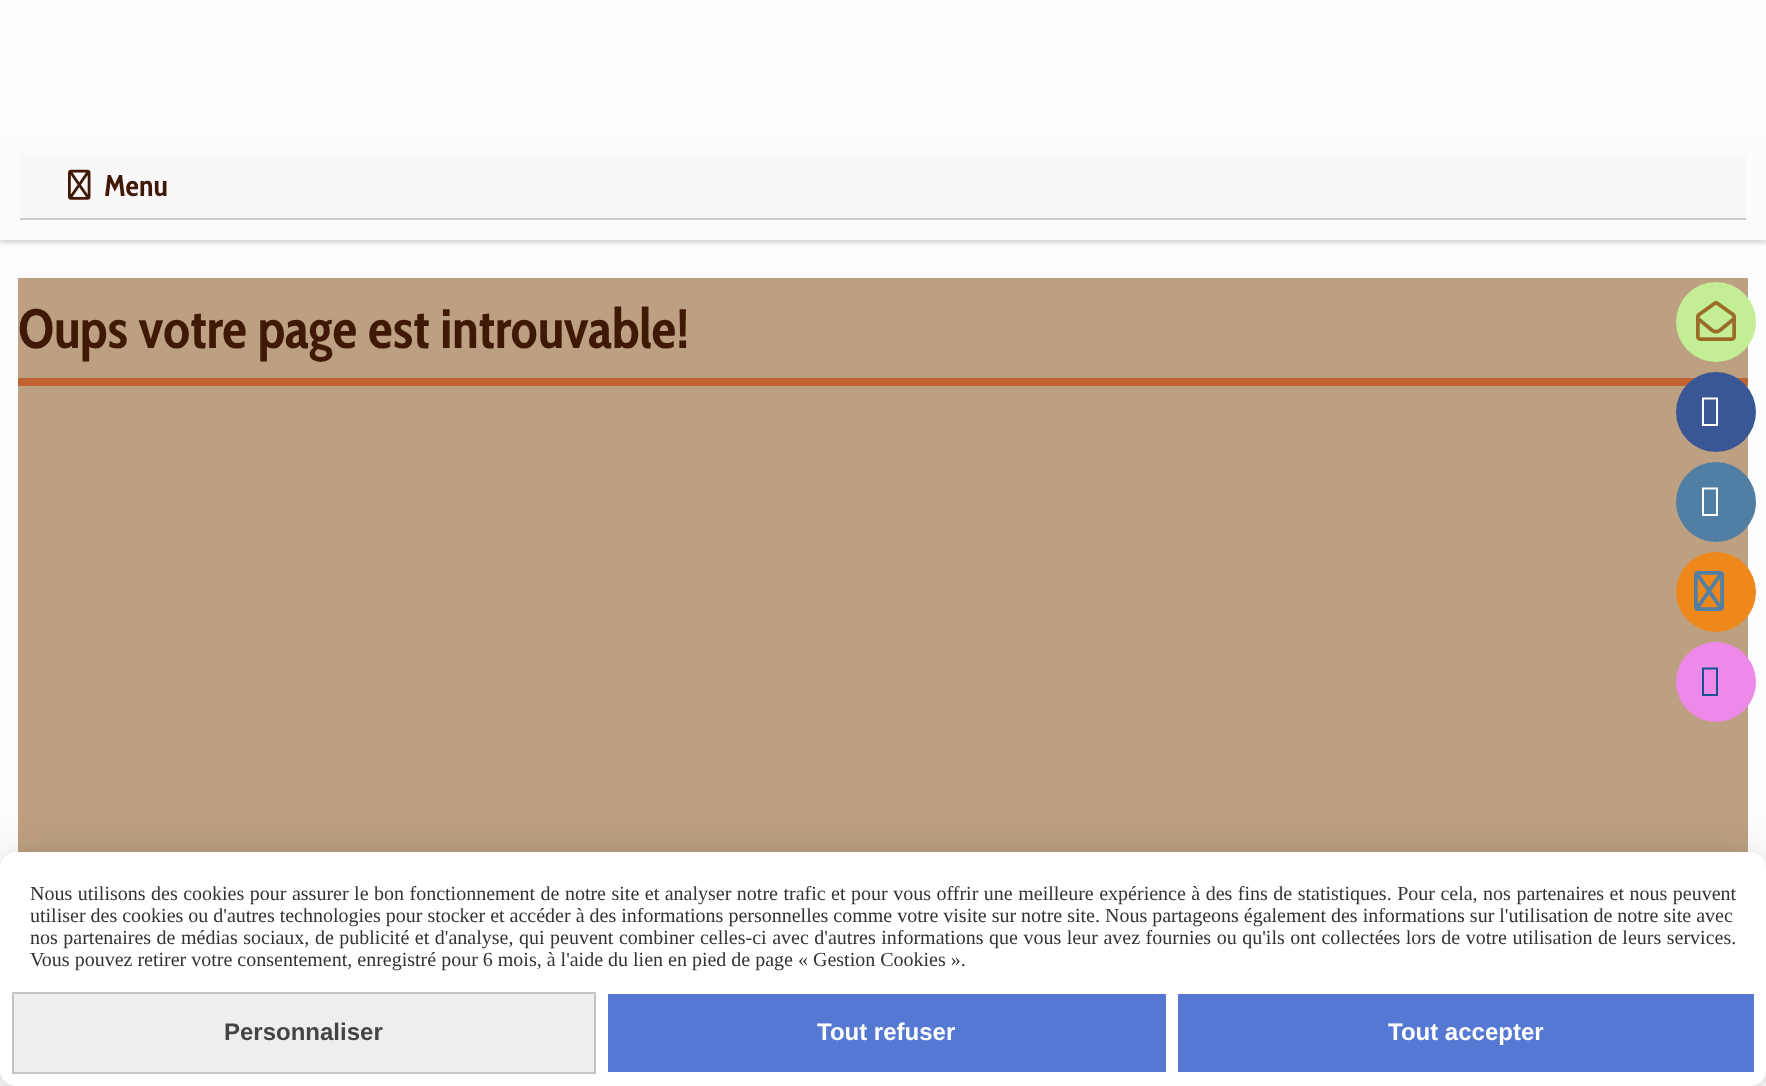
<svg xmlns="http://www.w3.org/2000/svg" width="1766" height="1086">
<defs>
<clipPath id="clip1"><rect x="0" y="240" width="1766" height="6"/></clipPath>
</defs>
<rect width="100%" height="100%" fill="#fcfdff"/>
<g clip-path="url(#clip1)">
<rect x="-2" y="-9" width="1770" height="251" fill="#00000033" filter="blur(3px)"/>
</g>
<rect y="134" width="1766" height="106" fill="#fbfafc"/>
<rect x="20" y="154" width="1726" height="64" fill="#faf7f8"/>
<rect x="20" y="218" width="1726" height="2" fill="#ccc"/>
<image x="68" y="169" width="23" height="31" href="media/1.png"/>
<text x="104" y="196" style="font-family:Cabin Condensed;font-size:30px;font-weight:bold;fill:#401906">Menu</text>
<rect x="18" y="278" width="1730" height="574" fill="#bda081"/>
<rect x="18" y="378" width="1730" height="8" fill="#c36232"/>
<text x="18" y="348" style="font-family:Cabin Condensed;font-size:55.5px;font-weight:bold;fill:#401906">Oups votre page est introuvable!</text>
<circle cx="1716" cy="322" r="40" fill="#c3ee96"/>
<image x="1696" y="301" width="40" height="40" href="media/2.png"/>
<circle cx="1716" cy="412" r="40" fill="#3a5795"/>
<path d="M1702 426v-28.5h16v28.5zm2-2h12v-24.5h-12z" fill="#fff"/>
<circle cx="1716" cy="502" r="40" fill="#517fa4"/>
<path d="M1702 516v-28.5h16v28.5zm2-2h12v-24.5h-12z" fill="#fff"/>
<circle cx="1716" cy="592" r="40" fill="#ee881c"/>
<image x="1694" y="571" width="30" height="40" href="media/3.png"/>
<circle cx="1716" cy="682" r="40" fill="#ec89e9"/>
<path d="M1702 696v-28.5h16v28.5zm2-2h12v-24.5h-12z" fill="#145490"/>
<rect y="856" width="1766" height="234" rx="16" fill="#0000000d" filter="blur(6px)"/>
<rect y="860" width="1766" height="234" rx="16" fill="#00000026" filter="blur(24px)"/>
<rect y="852" width="1766" height="234" rx="16" fill="#fff"/>
<text x="30" y="900" word-spacing="0.5" style="font-family:Liberation Serif;font-size:20px;fill:#333">Nous utilisons des cookies pour assurer le bon fonctionnement de notre site et analyser notre trafic et pour vous offrir une meilleure expérience à des fins de statistiques. Pour cela, nos partenaires et nous peuvent</text>
<text x="30" y="922" style="font-family:Liberation Serif;font-size:20px;fill:#333">utiliser des cookies ou d'autres technologies pour stocker et accéder à des informations personnelles comme votre visite sur notre site. Nous partageons également des informations sur l'utilisation de notre site avec</text>
<text x="30" y="944" word-spacing="0.55" style="font-family:Liberation Serif;font-size:20px;fill:#333">nos partenaires de médias sociaux, de publicité et d'analyse, qui peuvent combiner celles-ci avec d'autres informations que vous leur avez fournies ou qu'ils ont collectées lors de votre utilisation de leurs services.</text>
<text x="30" y="966" style="font-family:Liberation Serif;font-size:20px;fill:#333">Vous pouvez retirer votre consentement, enregistré pour 6 mois, à l'aide du lien en pied de page « Gestion Cookies ».</text>
<rect x="13" y="993" width="582" height="80" fill="#eee" stroke="#c5c5c5" stroke-width="2"/>
<text x="224" y="1040" style="font-family:Liberation Sans;font-size:24px;font-weight:bold;fill:#444">Personnaliser</text>
<rect x="608" y="994" width="558" height="78" fill="#5579d2"/>
<text x="817" y="1040" style="font-family:Liberation Sans;font-size:24px;font-weight:bold;fill:#fff">Tout refuser</text>
<rect x="1178" y="994" width="576" height="78" fill="#5579d2"/>
<text x="1388" y="1040" style="font-family:Liberation Sans;font-size:24px;font-weight:bold;fill:#fff">Tout accepter</text>
</svg>
